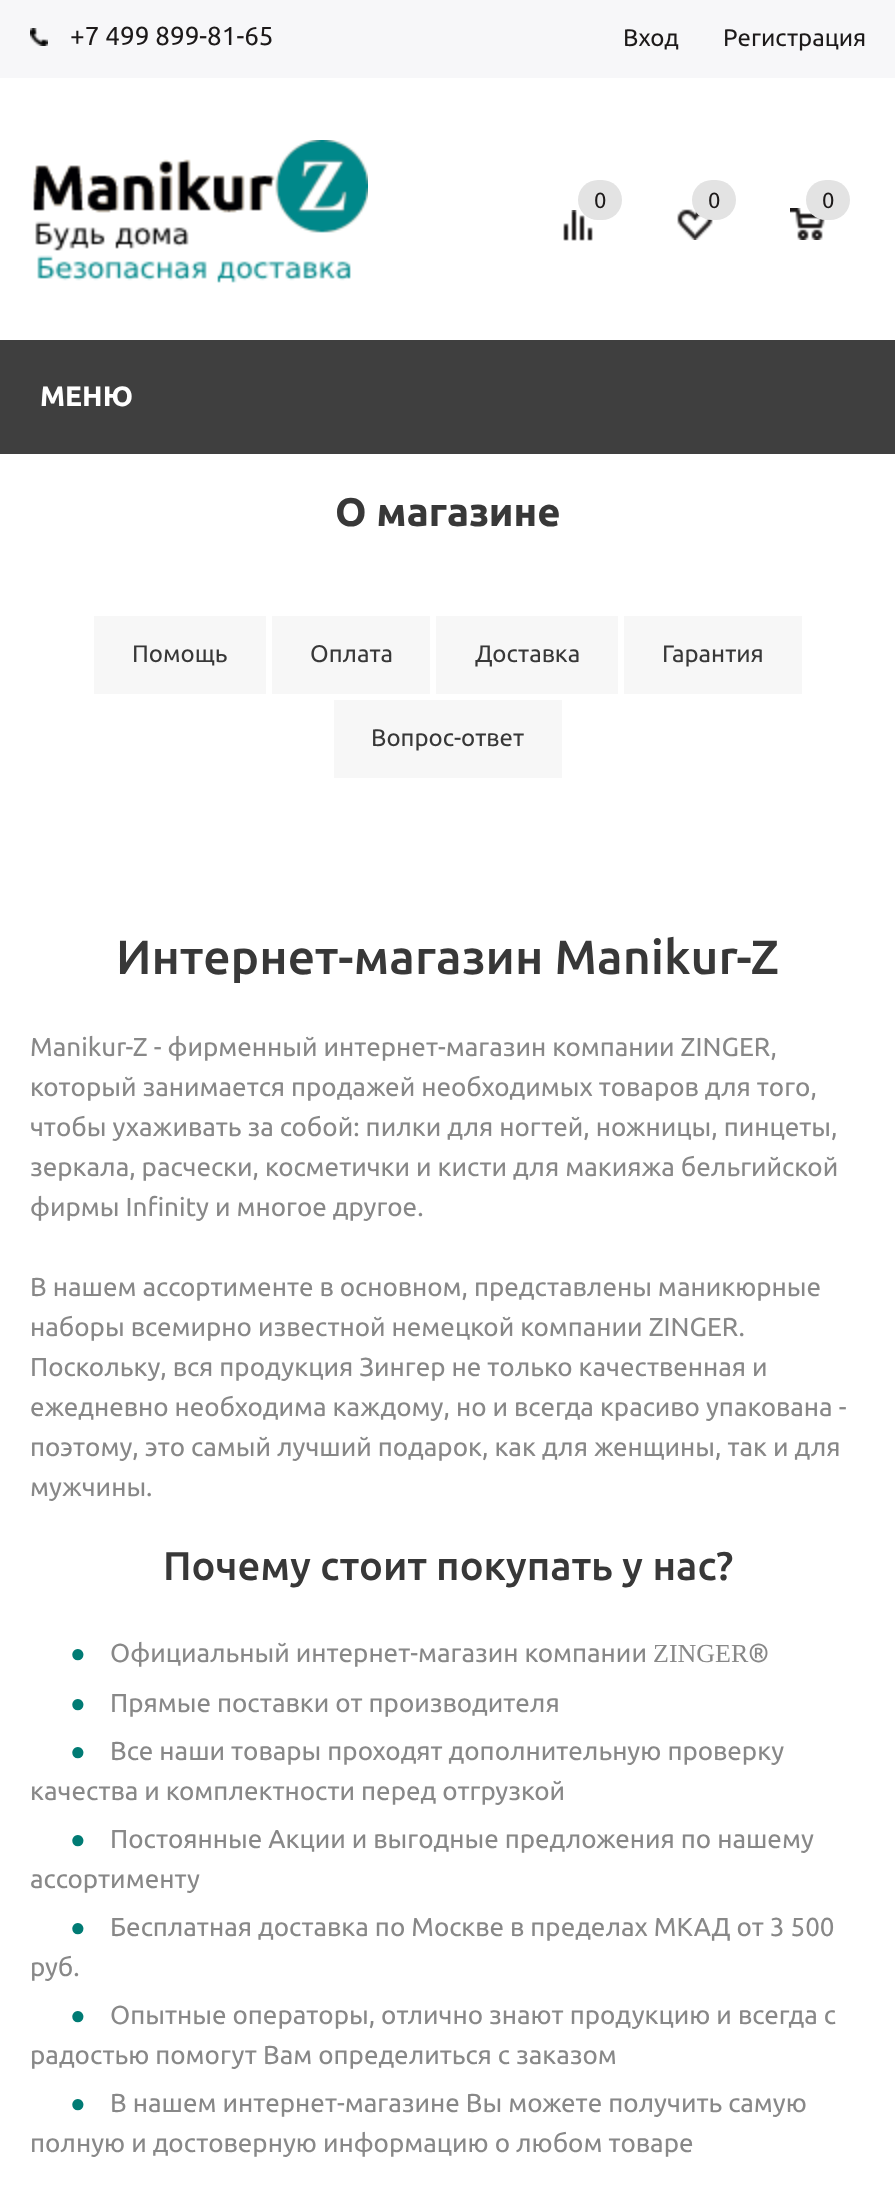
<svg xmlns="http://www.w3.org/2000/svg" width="895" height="2196">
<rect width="100%" height="100%" fill="#fff"/>
<rect width="895" height="78" fill="#f7f7f9"/>
<image x="30" y="28" width="18" height="18" href="media/1.png"/>
<text x="70" y="45" style="font-family:Ubuntu;font-size:26px;fill:#1d1a1a">+7 499 899-81-65</text>
<text x="623" y="46" style="font-family:Ubuntu;font-size:24px;fill:#1d1a1a">Вход</text>
<text x="723" y="46" style="font-family:Ubuntu;font-size:24px;fill:#1d1a1a">Регистрация</text>
<image x="30" y="140" width="338" height="154" href="media/2.png"/>
<image x="563" y="210" width="30" height="31" href="media/3.png"/>
<rect x="578" y="180" width="44" height="40" rx="20" fill="#e3e3e3"/>
<text x="594" y="208" style="font-family:Ubuntu;font-size:22px;fill:#1d1a1a">0</text>
<image x="677" y="209" width="36" height="31" href="media/4.png"/>
<rect x="692" y="180" width="44" height="40" rx="20" fill="#e3e3e3"/>
<text x="708" y="208" style="font-family:Ubuntu;font-size:22px;fill:#1d1a1a">0</text>
<image x="790" y="208" width="35" height="32" href="media/5.png"/>
<rect x="806" y="180" width="44" height="40" rx="20" fill="#e3e3e3"/>
<text x="822" y="208" style="font-family:Ubuntu;font-size:22px;fill:#1d1a1a">0</text>
<rect y="340" width="895" height="114" fill="#3f3f3f"/>
<text x="40" y="406" style="font-family:Ubuntu;font-size:28px;font-weight:bold;fill:#fff">МЕНЮ</text>
<text x="335" y="526" style="font-family:Ubuntu;font-size:40px;font-weight:bold;fill:#383838">О магазине</text>
<rect x="94" y="616" width="172" height="78" fill="#f7f7f7"/>
<text x="132" y="662" style="font-family:Ubuntu;font-size:24px;fill:#383838">Помощь</text>
<rect x="272" y="616" width="158" height="78" fill="#f7f7f7"/>
<text x="310" y="662" style="font-family:Ubuntu;font-size:24px;fill:#383838">Оплата</text>
<rect x="436" y="616" width="182" height="78" fill="#f7f7f7"/>
<text x="475" y="662" style="font-family:Ubuntu;font-size:24px;fill:#383838">Доставка</text>
<rect x="624" y="616" width="178" height="78" fill="#f7f7f7"/>
<text x="662" y="662" style="font-family:Ubuntu;font-size:24px;fill:#383838">Гарантия</text>
<rect x="334" y="700" width="228" height="78" fill="#f7f7f7"/>
<text x="371" y="746" style="font-family:Ubuntu;font-size:24px;fill:#383838">Вопрос-ответ</text>
<text x="116" y="974" style="font-family:Ubuntu;font-size:48px;font-weight:500;fill:#383838">Интернет-магазин Manikur-Z</text>
<text x="30" y="1056" style="font-family:Ubuntu;font-size:26px;fill:#888">Manikur-Z - фирменный интернет-магазин компании ZINGER,</text>
<text x="30" y="1096" style="font-family:Ubuntu;font-size:26px;fill:#888">который занимается продажей необходимых товаров для того,</text>
<text x="30" y="1136" style="font-family:Ubuntu;font-size:26px;fill:#888">чтобы ухаживать за собой: пилки для ногтей, ножницы, пинцеты,</text>
<text x="30" y="1176" style="font-family:Ubuntu;font-size:26px;fill:#888">зеркала, расчески, косметички и кисти для макияжа бельгийской</text>
<text x="30" y="1216" style="font-family:Ubuntu;font-size:26px;fill:#888">фирмы Infinity и многое другое.</text>
<text x="30" y="1296" style="font-family:Ubuntu;font-size:26px;fill:#888">В нашем ассортименте в основном, представлены маникюрные</text>
<text x="30" y="1336" style="font-family:Ubuntu;font-size:26px;fill:#888">наборы всемирно известной немецкой компании ZINGER.</text>
<text x="30" y="1376" style="font-family:Ubuntu;font-size:26px;fill:#888">Поскольку, вся продукция Зингер не только качественная и</text>
<text x="30" y="1416" style="font-family:Ubuntu;font-size:26px;fill:#888">ежедневно необходима каждому, но и всегда красиво упакована -</text>
<text x="30" y="1456" style="font-family:Ubuntu;font-size:26px;fill:#888">поэтому, это самый лучший подарок, как для женщины, так и для</text>
<text x="30" y="1496" style="font-family:Ubuntu;font-size:26px;fill:#888">мужчины.</text>
<text x="163" y="1580" style="font-family:Ubuntu;font-size:40px;font-weight:500;fill:#383838">Почему стоит покупать у нас?</text>
<text x="70" y="1662" style="font-family:Liberation Sans;font-size:26px;fill:#007b74">●</text>
<text x="110" y="1662" style="font-family:Ubuntu;font-size:26px;fill:#888">Официальный интернет-магазин компании</text>
<text x="653" y="1662" style="font-family:Liberation Serif;font-size:26px;fill:#888">ZINGER</text>
<text x="748" y="1662" style="font-family:Ubuntu;font-size:26px;fill:#888">®</text>
<text x="70" y="1712" style="font-family:Liberation Sans;font-size:26px;fill:#007b74">●</text>
<text x="110" y="1712" style="font-family:Ubuntu;font-size:26px;fill:#888">Прямые поставки от производителя</text>
<text x="70" y="1760" style="font-family:Liberation Sans;font-size:26px;fill:#007b74">●</text>
<text x="110" y="1760" style="font-family:Ubuntu;font-size:26px;fill:#888">Все наши товары проходят дополнительную проверку</text>
<text x="30" y="1800" style="font-family:Ubuntu;font-size:26px;fill:#888">качества и комплектности перед отгрузкой</text>
<text x="70" y="1848" style="font-family:Liberation Sans;font-size:26px;fill:#007b74">●</text>
<text x="110" y="1848" style="font-family:Ubuntu;font-size:26px;fill:#888">Постоянные Акции и выгодные предложения по нашему</text>
<text x="30" y="1888" style="font-family:Ubuntu;font-size:26px;fill:#888">ассортименту</text>
<text x="70" y="1936" style="font-family:Liberation Sans;font-size:26px;fill:#007b74">●</text>
<text x="110" y="1936" style="font-family:Ubuntu;font-size:26px;fill:#888">Бесплатная доставка по Москве в пределах МКАД от 3 500</text>
<text x="30" y="1976" style="font-family:Ubuntu;font-size:26px;fill:#888">руб.</text>
<text x="70" y="2024" style="font-family:Liberation Sans;font-size:26px;fill:#007b74">●</text>
<text x="110" y="2024" style="font-family:Ubuntu;font-size:26px;fill:#888">Опытные операторы, отлично знают продукцию и всегда с</text>
<text x="30" y="2064" style="font-family:Ubuntu;font-size:26px;fill:#888">радостью помогут Вам определиться с заказом</text>
<text x="70" y="2112" style="font-family:Liberation Sans;font-size:26px;fill:#007b74">●</text>
<text x="110" y="2112" style="font-family:Ubuntu;font-size:26px;fill:#888">В нашем интернет-магазине Вы можете получить самую</text>
<text x="30" y="2152" style="font-family:Ubuntu;font-size:26px;fill:#888">полную и достоверную информацию о любом товаре</text>
</svg>
